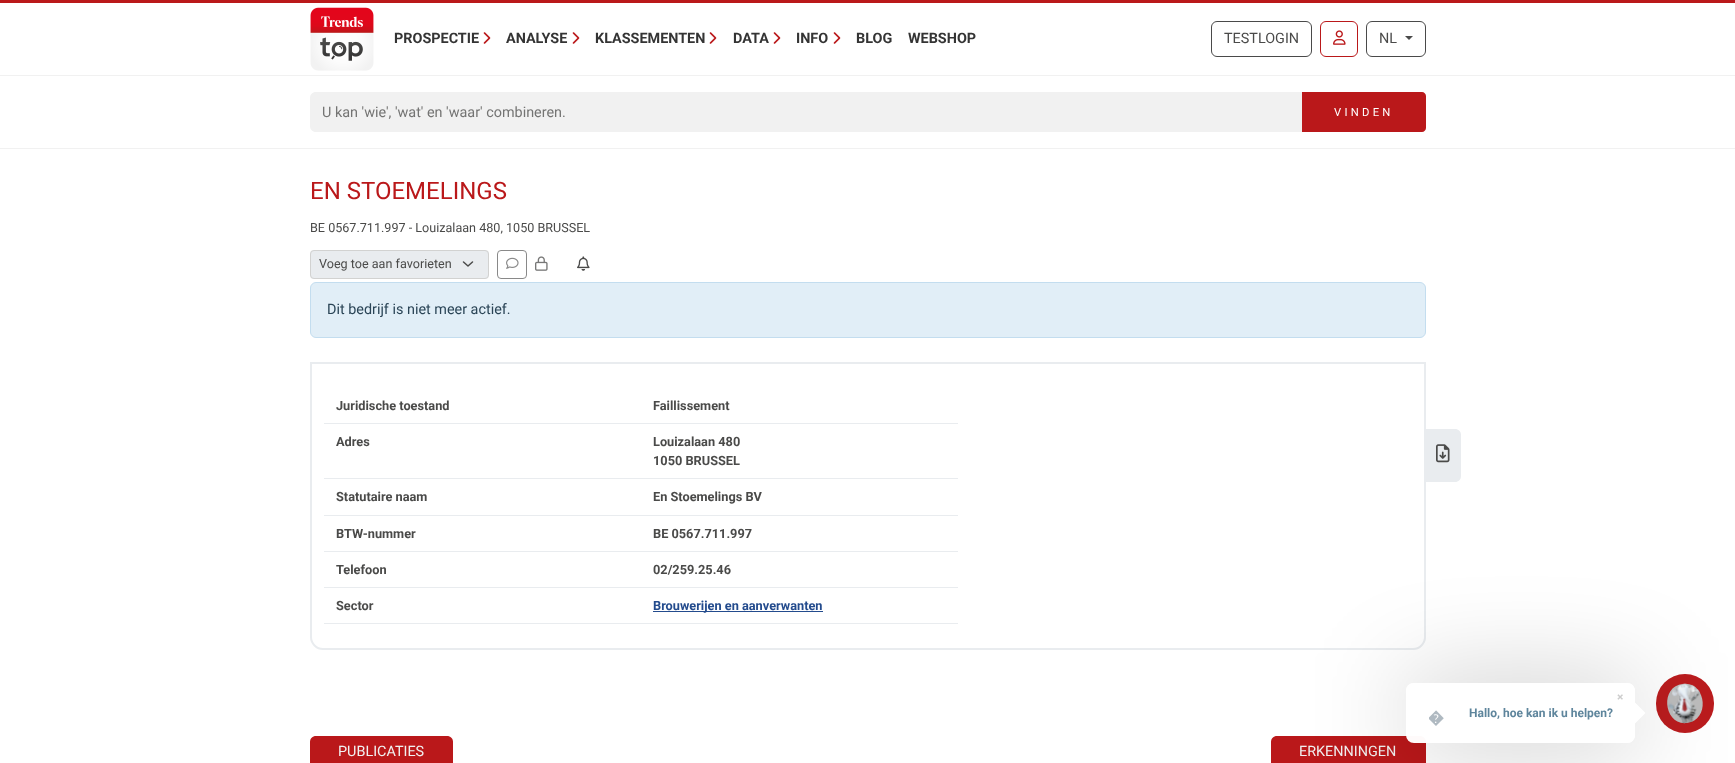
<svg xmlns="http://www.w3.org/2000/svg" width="1735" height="763">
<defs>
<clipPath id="clip1"><path d="M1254 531h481v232h-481zm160 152h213c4.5 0 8 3.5 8 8v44c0 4.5-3.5 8-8 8h-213c-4.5 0-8-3.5-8-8v-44c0-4.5 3.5-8 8-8z" clip-rule="evenodd"/></clipPath>
<clipPath id="clip2"><rect x="1429" y="688" width="40" height="50"/></clipPath>
</defs>
<rect width="100%" height="100%" fill="#fff"/>
<rect width="1735" height="3" fill="#ba181a"/>
<rect y="148" width="1735" height="1" fill="#f1f1f1"/>
<image x="310" y="7" width="64" height="64" href="media/1.png"/>
<text x="394" y="43" style="font-family:Roboto;font-size:14.4px;font-weight:bold;fill:#343434">PROSPECTIE</text>
<image x="483" y="32" width="8" height="12" href="media/2.png"/>
<text x="506" y="43" style="font-family:Roboto;font-size:14.4px;font-weight:bold;fill:#343434">ANALYSE</text>
<image x="572" y="32" width="8" height="12" href="media/2.png"/>
<text x="595" y="43" style="font-family:Roboto;font-size:14.4px;font-weight:bold;fill:#343434">KLASSEMENTEN</text>
<image x="709" y="32" width="8" height="12" href="media/2.png"/>
<text x="733" y="43" style="font-family:Roboto;font-size:14.4px;font-weight:bold;fill:#343434">DATA</text>
<image x="773" y="32" width="8" height="12" href="media/2.png"/>
<text x="796" y="43" style="font-family:Roboto;font-size:14.4px;font-weight:bold;fill:#343434">INFO</text>
<image x="833" y="32" width="8" height="12" href="media/2.png"/>
<text x="856" y="43" style="font-family:Roboto;font-size:14.4px;font-weight:bold;fill:#343434">BLOG</text>
<text x="908" y="43" style="font-family:Roboto;font-size:14.4px;font-weight:bold;fill:#343434">WEBSHOP</text>
<rect x="1211.5" y="21.5" width="100" height="35" rx="5.5" fill="none" stroke="#4a4a4a"/>
<text x="1224" y="43" style="font-family:Roboto;font-size:14.4px;fill:#4a4a49">TESTLOGIN</text>
<rect x="1320.5" y="21.5" width="37" height="35" rx="5.5" fill="none" stroke="#ba181a"/>
<image x="1333" y="30" width="13" height="15" href="media/3.png"/>
<rect x="1366.5" y="21.5" width="59" height="35" rx="5.5" fill="none" stroke="#4a4a4a"/>
<text x="1379" y="43" style="font-family:Roboto;font-size:14.4px;fill:#4a4a49">NL</text>
<path d="M1405 36h8l-4 4z" fill="#4a4a4a"/>
<rect y="75" width="1735" height="1" fill="#f1f1f1"/>
<path d="M316 92h987v40h-987c-3.5 0-6-2.5-6-6v-28c0-3.5 2.5-6 6-6z" fill="#f1f1f1"/>
<text x="322" y="117" style="font-family:Roboto;font-size:14.4px;fill:#747473">U kan 'wie', 'wat' en 'waar' combineren.</text>
<path d="M1302 92h120c2 0 4 2 4 4v32c0 2-2 4-4 4h-120z" fill="#ba181a"/>
<text x="1334" y="116" style="font-family:Roboto;font-size:11.25px;letter-spacing:3.25px;fill:#fff">VINDEN</text>
<text x="310" y="199" style="font-family:Roboto;font-size:24px;fill:#ba181a">EN STOEMELINGS</text>
<text x="310" y="232" style="font-family:Roboto;font-size:12.6px;fill:#4a4a49">BE 0567.711.997 - Louizalaan 480, 1050 BRUSSEL</text>
<rect x="310" y="250" width="179" height="29" rx="4" fill="#e9ecef"/>
<path d="M463.5 262l4.5 4l4.5-4" fill="none" stroke="#4a4a49" stroke-width="1.5" stroke-linecap="round" stroke-linejoin="round"/>
<rect x="310.5" y="250.5" width="178" height="28" rx="3.5" fill="none" stroke="#d2d2d1"/>
<text x="319" y="268" style="font-family:Roboto;font-size:12.6px;fill:#4a4a49">Voeg toe aan favorieten</text>
<rect x="497.5" y="250.5" width="29" height="28" rx="3.5" fill="none" stroke="#898989"/>
<image x="506" y="257" width="13" height="12" href="media/4.png"/>
<image x="535" y="256" width="13" height="15" href="media/5.png"/>
<image x="577" y="256" width="13" height="15" href="media/6.png"/>
<rect x="310.5" y="282.5" width="1115" height="55" rx="5.5" fill="#e1eef7" stroke="#c3ddef"/>
<text x="327" y="314" style="font-family:Roboto;font-size:14.4px;fill:#2a4456">Dit bedrijf is niet meer actief.</text>
<path d="M311 363h1114v274c0 6.5-5.5 12-12 12h-1090c-6.5 0-12-5.5-12-12z" fill="none" stroke="#e9ecef" stroke-width="2"/>
<rect x="324" y="423" width="634" height="1" fill="#e9ecef"/>
<text x="336" y="410" style="font-family:Roboto;font-size:12.75px;font-weight:bold;fill:#4a4a49">Juridische toestand</text>
<text x="653" y="410" style="font-family:Roboto;font-size:12.75px;font-weight:bold;fill:#4a4a49">Faillissement</text>
<rect x="324" y="478" width="634" height="1" fill="#e9ecef"/>
<text x="336" y="446" style="font-family:Roboto;font-size:12.75px;font-weight:bold;fill:#4a4a49">Adres</text>
<text x="653" y="446" style="font-family:Roboto;font-size:12.75px;font-weight:bold;fill:#4a4a49">Louizalaan 480</text>
<text x="653" y="465" style="font-family:Roboto;font-size:12.75px;font-weight:bold;fill:#4a4a49">1050 BRUSSEL</text>
<rect x="324" y="515" width="634" height="1" fill="#e9ecef"/>
<text x="336" y="501" style="font-family:Roboto;font-size:12.75px;font-weight:bold;fill:#4a4a49">Statutaire naam</text>
<text x="653" y="501" style="font-family:Roboto;font-size:12.75px;font-weight:bold;fill:#4a4a49">En Stoemelings BV</text>
<rect x="324" y="551" width="634" height="1" fill="#e9ecef"/>
<text x="336" y="538" style="font-family:Roboto;font-size:12.75px;font-weight:bold;fill:#4a4a49">BTW-nummer</text>
<text x="653" y="538" style="font-family:Roboto;font-size:12.75px;font-weight:bold;fill:#4a4a49">BE 0567.711.997</text>
<rect x="324" y="587" width="634" height="1" fill="#e9ecef"/>
<text x="336" y="574" style="font-family:Roboto;font-size:12.75px;font-weight:bold;fill:#4a4a49">Telefoon</text>
<text x="653" y="574" style="font-family:Roboto;font-size:12.75px;font-weight:bold;fill:#4a4a49">02/259.25.46</text>
<rect x="324" y="623" width="634" height="1" fill="#e9ecef"/>
<text x="336" y="610" style="font-family:Roboto;font-size:12.75px;font-weight:bold;fill:#4a4a49">Sector</text>
<rect x="653" y="611" width="170" height="1" fill="#234b8d"/>
<text x="653" y="610" style="font-family:Roboto;font-size:12.75px;font-weight:bold;fill:#234b8d">Brouwerijen en aanverwanten</text>
<path d="M1426 429h29c3.5 0 6 2.5 6 6v41c0 3.5-2.5 6-6 6h-29z" fill="#e9ecef"/>
<image x="1436" y="444" width="14" height="19" href="media/7.png"/>
<path d="M316 736h131c3.5 0 6 2.5 6 6v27h-143v-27c0-3.5 2.5-6 6-6z" fill="#ba181a"/>
<text x="338" y="756" style="font-family:Roboto;font-size:14.4px;fill:#f1f1f1">PUBLICATIES</text>
<path d="M1277 736h143c3.5 0 6 2.5 6 6v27h-155v-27c0-3.5 2.5-6 6-6z" fill="#ba181a"/>
<text x="1299" y="756" style="font-family:Roboto;font-size:14.4px;fill:#f1f1f1">ERKENNINGEN</text>
<rect x="1656" y="674" width="58" height="59" rx="29" fill="#bb1c1e"/>
<path d="M1683 684c23-3 28 36 4 39c-23 3-28-37-4-39z" fill="#bdbdbd"/>
<image x="1668" y="683" width="33" height="41" href="media/8.png"/>
<g clip-path="url(#clip1)">
<rect x="1405" y="682" width="233" height="64" rx="10" fill="#00000038" filter="blur(50px)"/>
</g>
<rect x="1406" y="683" width="229" height="60" rx="8" fill="#fffffffa"/>
<text x="1617" y="701" style="font-family:Roboto;font-size:12px;font-weight:bold;fill:#cdcdcd">×</text>
<g clip-path="url(#clip2)">
<text x="1428" y="723" style="font-family:Noto Color Emoji;font-size:16px;font-weight:bold;fill:#afb9c1">�</text>
</g>
<text x="1469" y="717" style="font-family:Roboto;font-size:12px;font-weight:bold;fill:#5e859c">Hallo, hoe kan ik u helpen?</text>
<path d="M1630.5 728v-30l15 15z" fill="#fff"/>
</svg>
